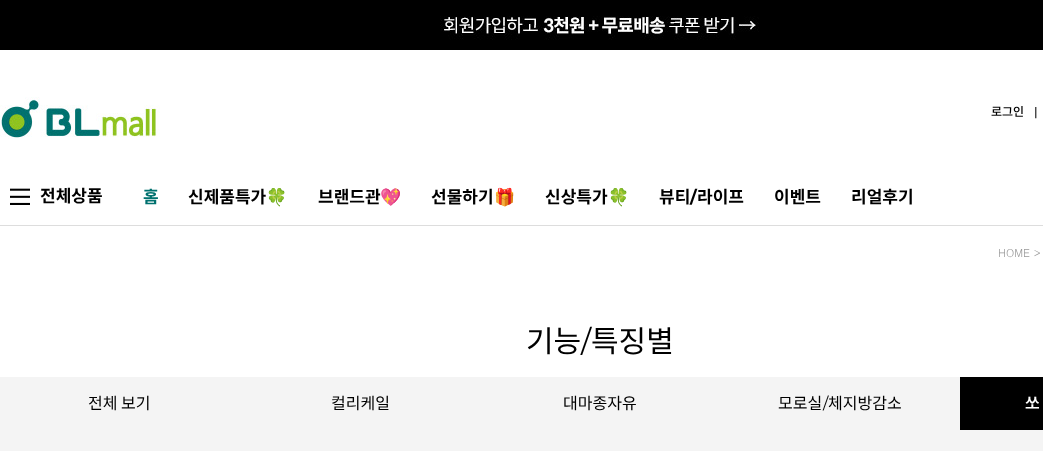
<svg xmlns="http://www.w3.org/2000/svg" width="1043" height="451">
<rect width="100%" height="100%" fill="#fff"/>
<rect width="1043" height="50" fill="#000"/>
<image x="440" y="16" width="319" height="24" href="media/1.png"/>
<image x="0" y="97" width="160" height="42" href="media/2.png"/>
<text x="991" y="116" style="font-family:Noto Sans KR;font-size:12px;font-weight:500;fill:#000">로그인</text>
<text x="1034" y="116" style="font-family:Montserrat;font-size:12px;font-weight:500;fill:#000">|</text>
<rect y="225" width="1043" height="1" fill="#ddd"/>
<image x="10" y="188" width="20" height="17" href="media/3.png"/>
<text x="40" y="202" style="font-family:Noto Sans KR;font-size:17px;font-weight:bold;fill:#000">전체상품</text>
<text x="143" y="203" style="font-family:Noto Sans KR;font-size:17px;font-weight:bold;fill:#00716f">홈</text>
<text x="188" y="203" style="font-family:Noto Sans KR;font-size:17px;font-weight:bold;fill:#000">신제품특가</text>
<text x="266" y="203" style="font-family:Noto Color Emoji;font-size:17px;font-weight:bold;fill:#000">🍀</text>
<text x="318" y="203" style="font-family:Noto Sans KR;font-size:17px;font-weight:bold;fill:#000">브랜드관</text>
<text x="380" y="203" style="font-family:Noto Color Emoji;font-size:17px;font-weight:bold;fill:#000">💖</text>
<text x="431" y="203" style="font-family:Noto Sans KR;font-size:17px;font-weight:bold;fill:#000">선물하기</text>
<text x="494" y="203" style="font-family:Noto Color Emoji;font-size:17px;font-weight:bold;fill:#000">🎁</text>
<text x="545" y="203" style="font-family:Noto Sans KR;font-size:17px;font-weight:bold;fill:#000">신상특가</text>
<text x="608" y="203" style="font-family:Noto Color Emoji;font-size:17px;font-weight:bold;fill:#000">🍀</text>
<text x="659" y="203" style="font-family:Noto Sans KR;font-size:17px;font-weight:bold;fill:#000">뷰티</text>
<text x="690" y="203" style="font-family:Montserrat;font-size:17px;font-weight:bold;fill:#000">/</text>
<text x="697" y="203" style="font-family:Noto Sans KR;font-size:17px;font-weight:bold;fill:#000">라이프</text>
<text x="774" y="203" style="font-family:Noto Sans KR;font-size:17px;font-weight:bold;fill:#000">이벤트</text>
<text x="851" y="203" style="font-family:Noto Sans KR;font-size:17px;font-weight:bold;fill:#000">리얼후기</text>
<text x="998" y="257" style="font-family:Dotum;font-size:11px;fill:#999">HOME &gt;</text>
<text x="526" y="352" style="font-family:Noto Sans KR;font-size:30px;fill:#000">기능</text>
<text x="581" y="352" style="font-family:Montserrat;font-size:30px;fill:#000">/</text>
<text x="591" y="352" style="font-family:Noto Sans KR;font-size:30px;fill:#000">특징별</text>
<rect y="377" width="960" height="53" fill="#f4f4f4"/>
<text x="88" y="409" style="font-family:Noto Sans KR;font-size:16px;fill:#000">전체 보기</text>
<text x="331" y="409" style="font-family:Noto Sans KR;font-size:16px;fill:#000">컬리케일</text>
<text x="563" y="409" style="font-family:Noto Sans KR;font-size:16px;fill:#000">대마종자유</text>
<text x="778" y="409" style="font-family:Noto Sans KR;font-size:16px;fill:#000">모로실</text>
<text x="823" y="409" style="font-family:Montserrat;font-size:16px;fill:#000">/</text>
<text x="828" y="409" style="font-family:Noto Sans KR;font-size:16px;fill:#000">체지방감소</text>
<rect x="960" y="377" width="83" height="53" fill="#000"/>
<text x="1025" y="409" style="font-family:Noto Sans KR;font-size:16px;font-weight:600;fill:#fff">쏘</text>
<rect y="430" width="1043" height="21" fill="#f4f4f4"/>
</svg>
